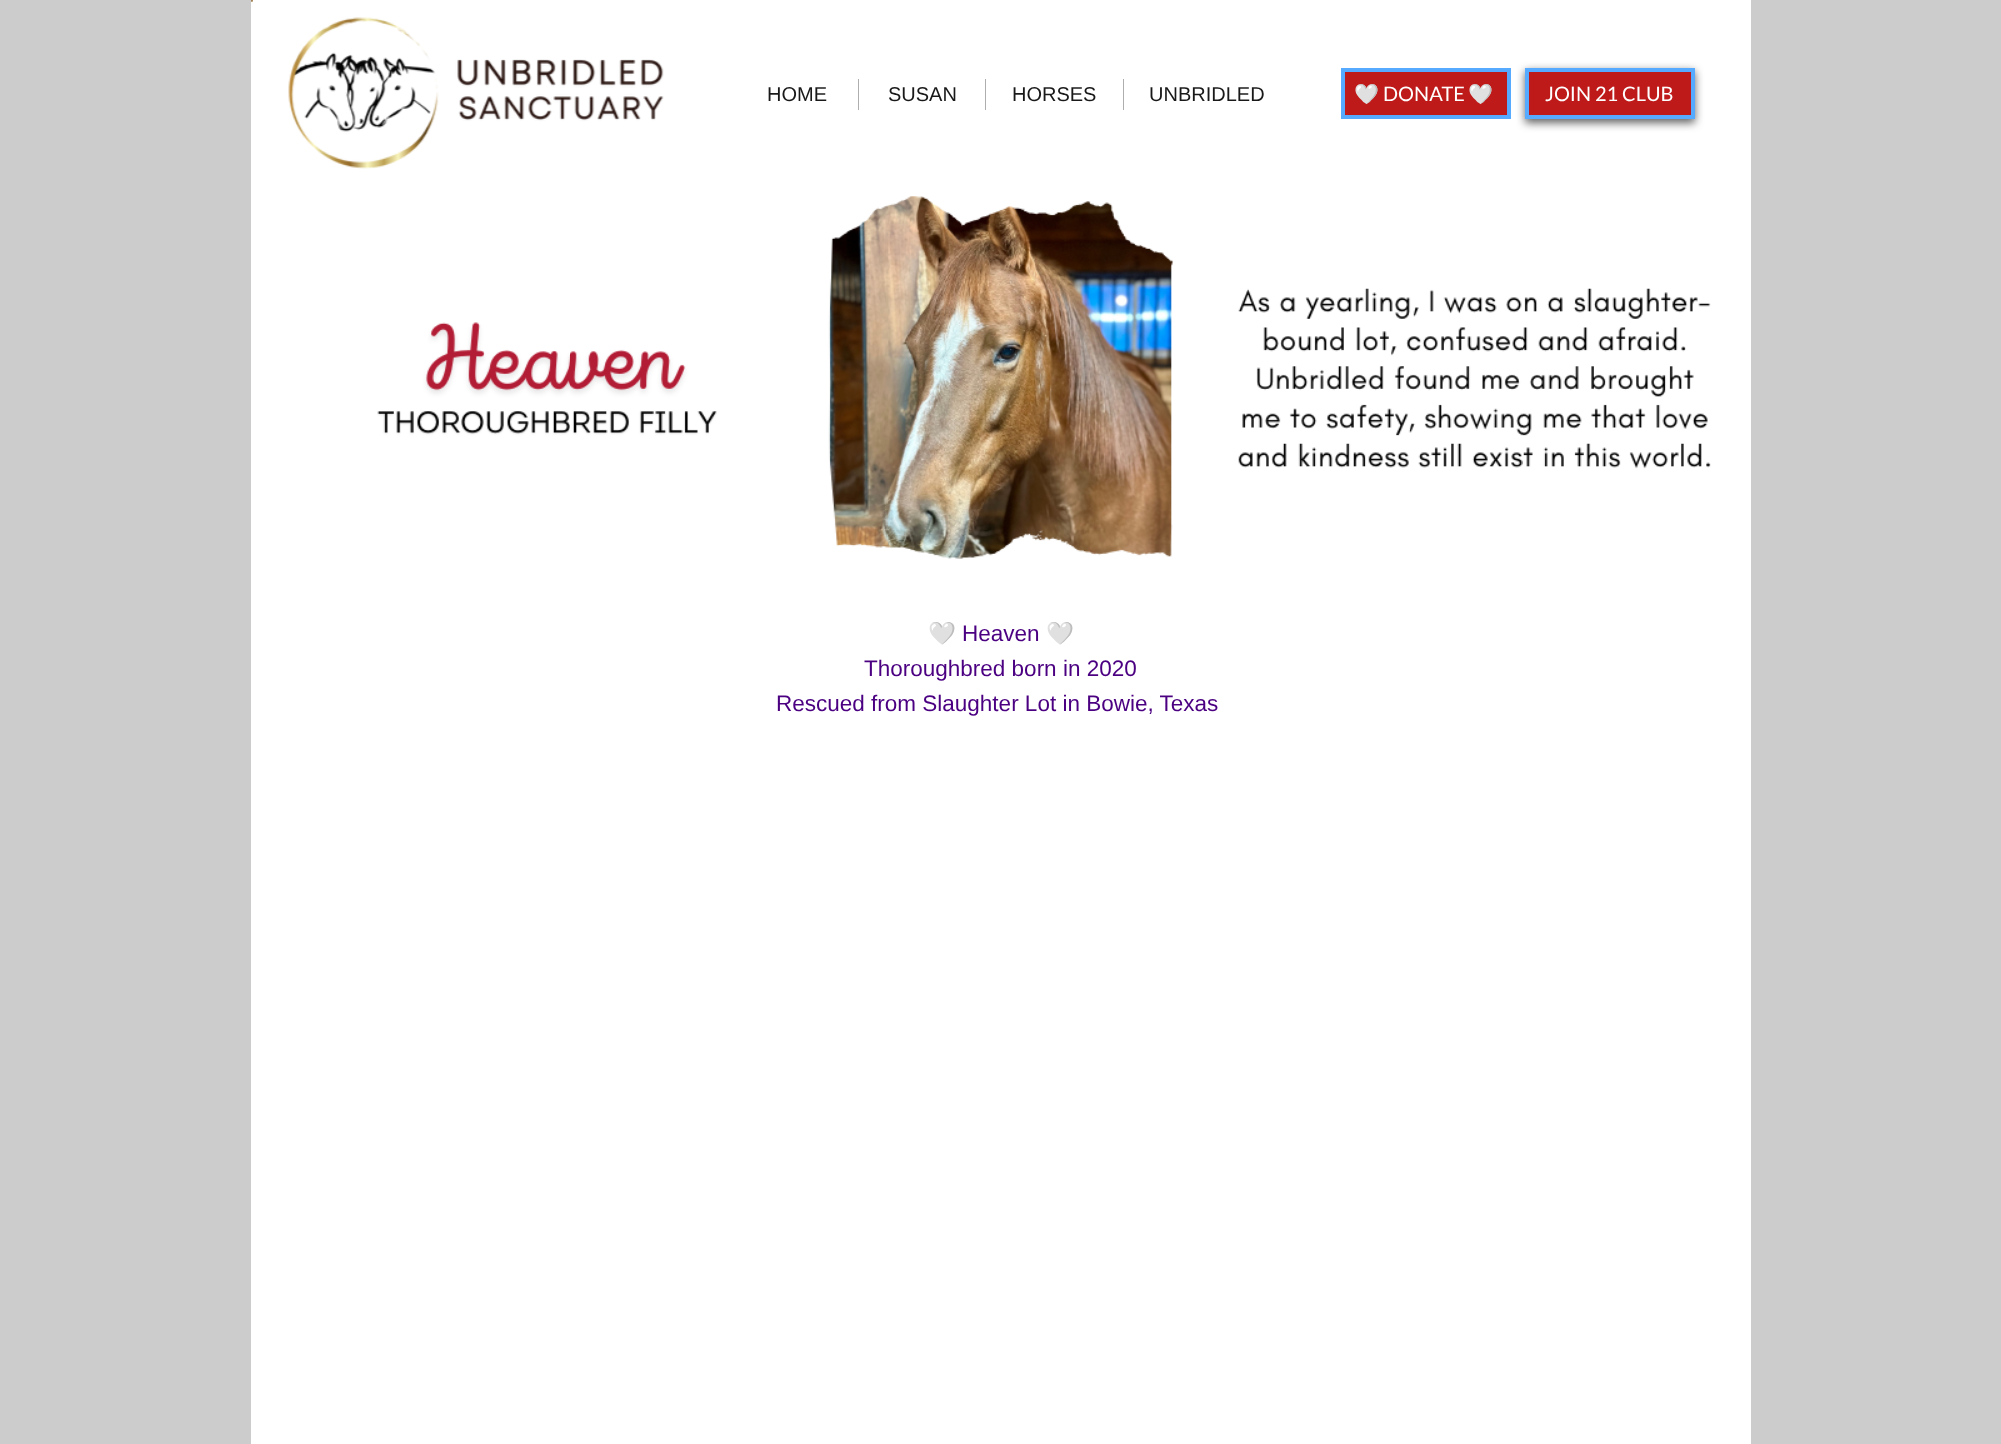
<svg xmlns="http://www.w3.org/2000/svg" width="2001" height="1444">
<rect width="100%" height="100%" fill="#ccc"/>
<rect x="251" width="1500" height="1444" fill="#fff"/>
<image x="251" y="0" width="2" height="2" href="media/1.png"/>
<image x="251" y="0" width="2" height="2" href="media/2.png"/>
<image x="251" y="0" width="2" height="2" href="media/3.png"/>
<image x="251" y="0" width="2" height="2" href="media/4.png"/>
<image x="251" y="0" width="2" height="2" href="media/5.png"/>
<image x="251" y="1" width="2" height="1" href="media/6.png"/>
<image x="251" y="1" width="2" height="1" href="media/7.png"/>
<image x="288" y="17" width="376" height="152" href="media/8.png"/>
<rect x="858" y="79" width="1" height="31" fill="#aeaeae"/>
<text x="767" y="101" style="font-family:Liberation Sans;font-size:20px;fill:#191919">HOME</text>
<rect x="985" y="79" width="1" height="31" fill="#aeaeae"/>
<text x="888" y="101" style="font-family:Liberation Sans;font-size:20px;fill:#191919">SUSAN</text>
<rect x="1123" y="79" width="1" height="31" fill="#aeaeae"/>
<text x="1012" y="101" style="font-family:Liberation Sans;font-size:20px;fill:#191919">HORSES</text>
<text x="1149" y="101" style="font-family:Liberation Sans;font-size:20px;fill:#191919">UNBRIDLED</text>
<rect x="1525" y="71" width="170" height="52" fill="#323232bf" filter="blur(4.5px)"/>
<rect x="1343" y="70" width="166" height="47" fill="#bf1a1a" stroke="#56aaff" stroke-width="4"/>
<text x="1354" y="101" style="font-family:Noto Color Emoji;font-size:20px;fill:#fff">🤍</text>
<text x="1383" y="101" style="font-family:Lato;font-size:20px;fill:#fff">DONATE</text>
<text x="1468" y="101" style="font-family:Noto Color Emoji;font-size:20px;fill:#fff">🤍</text>
<rect x="1527" y="70" width="166" height="47" fill="#bf1a1a" stroke="#56aaff" stroke-width="4"/>
<text x="1545" y="101" style="font-family:Lato;font-size:20px;fill:#fff">JOIN 21 CLUB</text>
<image x="377" y="196" width="1334" height="363" href="media/9.png"/>
<text x="928" y="641" style="font-family:Noto Color Emoji;font-size:22.5px;fill:#4b0082">🤍</text>
<text x="962" y="641" style="font-family:Liberation Sans;font-size:22.5px;fill:#4b0082">Heaven</text>
<text x="1046" y="641" style="font-family:Noto Color Emoji;font-size:22.5px;fill:#4b0082">🤍</text>
<text x="864" y="676" style="font-family:Liberation Sans;font-size:22.5px;fill:#4b0082">Thoroughbred born in 2020</text>
<text x="776" y="711" style="font-family:Liberation Sans;font-size:22.5px;fill:#4b0082">Rescued from Slaughter Lot in Bowie, Texas</text>
</svg>
